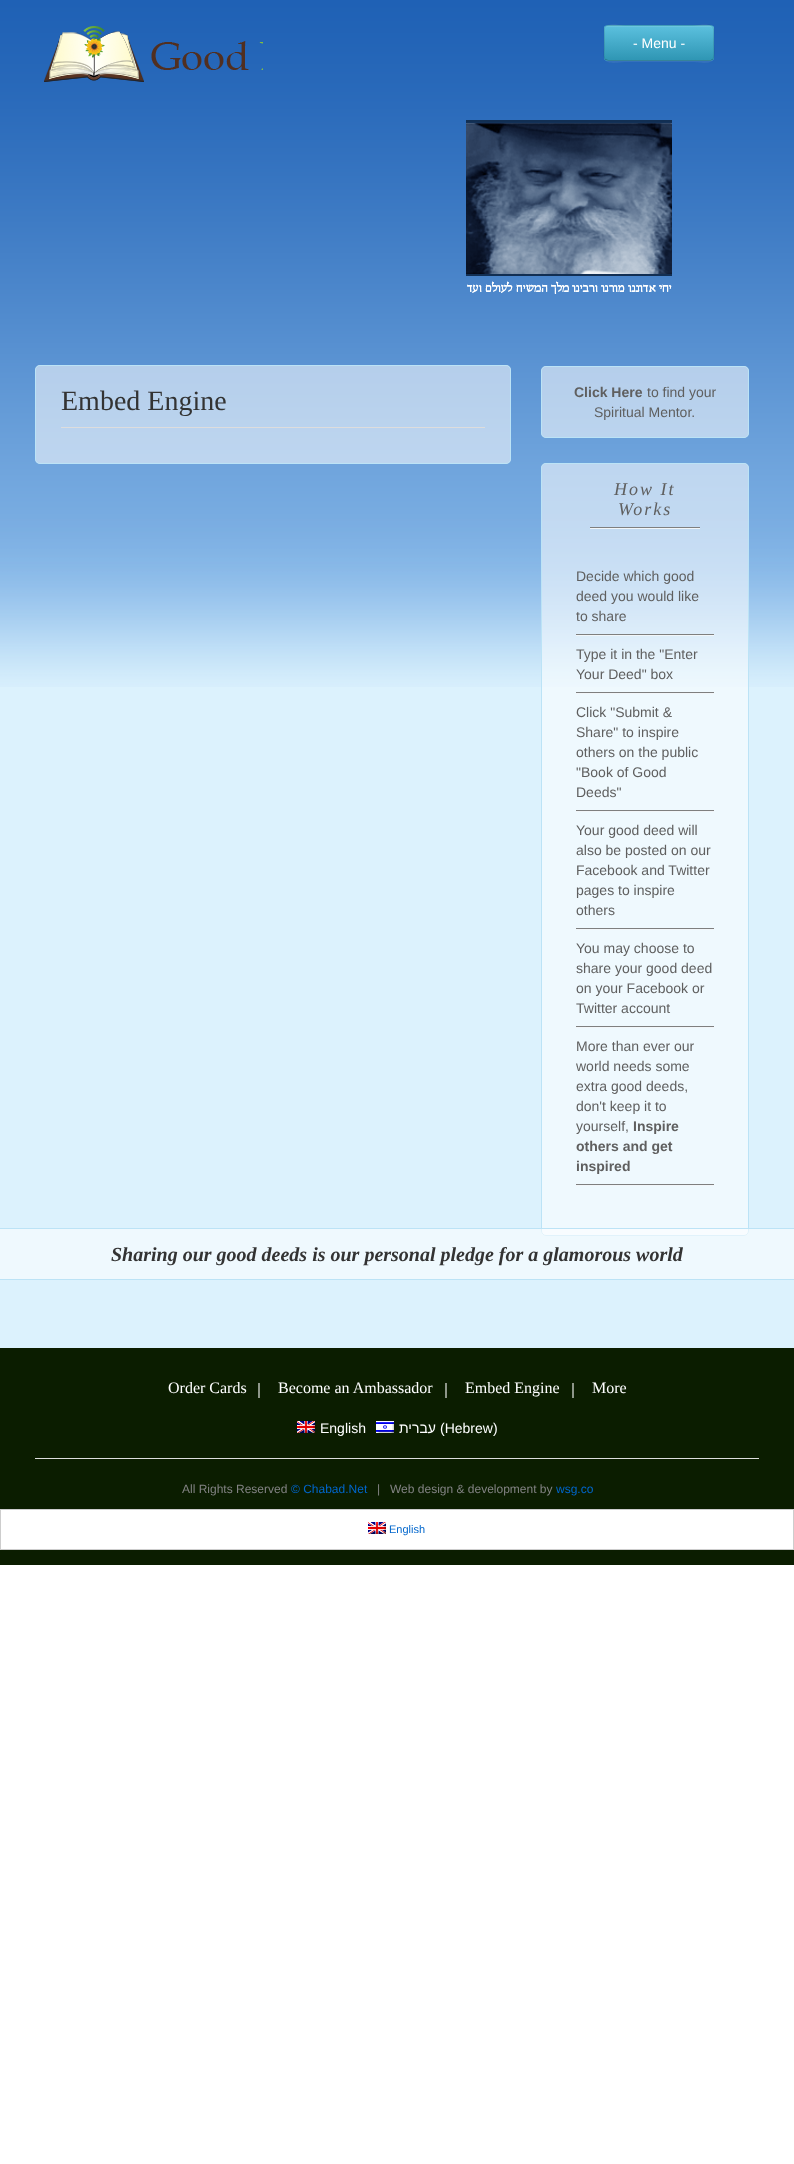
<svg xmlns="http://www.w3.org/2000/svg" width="794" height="2164">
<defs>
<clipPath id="clip1"><rect x="604" y="25" width="110" height="36" rx="4"/></clipPath>
<linearGradient id="g1" gradientUnits="userSpaceOnUse" x1="659" y1="26" x2="659" y2="60"><stop offset="0" stop-color="#5bc0de"/><stop offset="1" stop-color="#2f96b4"/></linearGradient>
</defs>
<rect width="100%" height="100%" fill="#fff"/>
<rect y="527" width="794" height="821" fill="#dcf2fd"/>
<image x="0" y="0" width="794" height="687" href="media/1.png"/>
<image x="44" y="26" width="219" height="56" href="media/2.png"/>
<path d="M604 57c0 9 17 5 21 5h68c4 0 21 4 21-5c0 2-2 4-4 4h-102c-2 0-4-2-4-4z" fill="#3571bd"/>
<rect x="604" y="25" width="110" height="36" rx="4" fill="#49afcd"/>
<g clip-path="url(#clip1)">
<rect x="604" y="26" width="110" height="34" fill="url(#g1)"/>
</g>
<path d="M608 27h102c2 0 3 1 3 3c0-9-18-4-20-4h-68c-2 0-20-5-20 4c0-2 1-3 3-3z" fill="#ffffff1a"/>
<path d="M712.5 59.5l-2 1h-85.5h-17l-2.5-1" fill="none" stroke="#00000040"/>
<path d="M605.5 59.5c-2.5-2.5-1-9.5-1-12v-14c0-2.5-1-8 3.5-8h85c23.5 0 20.5-4 20.5 17.5c0 3 1.5 14-1 16.5" fill="none" stroke="#0000001a"/>
<text x="633" y="48" style="font-family:Liberation Sans;font-size:14px;fill:#fff">- Menu -</text>
<image x="466" y="120" width="206" height="174" href="media/3.png"/>
<image x="35" y="365" width="476" height="99" href="media/4.png"/>
<rect x="35.5" y="365.5" width="475" height="98" rx="4.5" fill="none" stroke="#bce3f6"/>
<rect x="61" y="427" width="424" height="1" fill="#ddd"/>
<text x="61" y="410" style="font-family:Liberation Serif;font-size:28px;fill:#333">Embed Engine</text>
<image x="541" y="366" width="208" height="72" href="media/5.png"/>
<rect x="541.5" y="366.5" width="207" height="71" rx="4.5" fill="none" stroke="#bce3f6"/>
<text x="574" y="397" style="font-family:Liberation Sans;font-size:14px;font-weight:bold;fill:#5f5f5f">Click Here</text>
<text x="647" y="397" style="font-family:Liberation Sans;font-size:14px;fill:#5f5f5f">to find your</text>
<text x="594" y="417" style="font-family:Liberation Sans;font-size:14px;fill:#5f5f5f">Spiritual Mentor.</text>
<image x="541" y="463" width="208" height="773" href="media/6.png"/>
<rect x="541.5" y="463.5" width="207" height="772" rx="4.5" fill="none" stroke="#bce3f6"/>
<image x="590" y="527" width="110" height="2" href="media/7.png"/>
<text x="614" y="495" style="font-family:Liberation Serif;font-size:18px;font-style:italic;letter-spacing:2px;fill:#5f5f5f">How It</text>
<text x="618" y="515" style="font-family:Liberation Serif;font-size:18px;font-style:italic;letter-spacing:2px;fill:#5f5f5f">Works</text>
<image x="576" y="634" width="138" height="2" href="media/8.png"/>
<text x="576" y="581" style="font-family:Liberation Sans;font-size:14px;fill:#5f5f5f">Decide which good</text>
<text x="576" y="601" style="font-family:Liberation Sans;font-size:14px;fill:#5f5f5f">deed you would like</text>
<text x="576" y="621" style="font-family:Liberation Sans;font-size:14px;fill:#5f5f5f">to share</text>
<image x="576" y="692" width="138" height="2" href="media/8.png"/>
<text x="576" y="659" style="font-family:Liberation Sans;font-size:14px;fill:#5f5f5f">Type it in the "Enter</text>
<text x="576" y="679" style="font-family:Liberation Sans;font-size:14px;fill:#5f5f5f">Your Deed" box</text>
<image x="576" y="810" width="138" height="2" href="media/8.png"/>
<text x="576" y="717" style="font-family:Liberation Sans;font-size:14px;fill:#5f5f5f">Click "Submit &amp;</text>
<text x="576" y="737" style="font-family:Liberation Sans;font-size:14px;fill:#5f5f5f">Share" to inspire</text>
<text x="576" y="757" style="font-family:Liberation Sans;font-size:14px;fill:#5f5f5f">others on the public</text>
<text x="576" y="777" style="font-family:Liberation Sans;font-size:14px;fill:#5f5f5f">"Book of Good</text>
<text x="576" y="797" style="font-family:Liberation Sans;font-size:14px;fill:#5f5f5f">Deeds"</text>
<image x="576" y="928" width="138" height="2" href="media/8.png"/>
<text x="576" y="835" style="font-family:Liberation Sans;font-size:14px;fill:#5f5f5f">Your good deed will</text>
<text x="576" y="855" style="font-family:Liberation Sans;font-size:14px;fill:#5f5f5f">also be posted on our</text>
<text x="576" y="875" style="font-family:Liberation Sans;font-size:14px;fill:#5f5f5f">Facebook and Twitter</text>
<text x="576" y="895" style="font-family:Liberation Sans;font-size:14px;fill:#5f5f5f">pages to inspire</text>
<text x="576" y="915" style="font-family:Liberation Sans;font-size:14px;fill:#5f5f5f">others</text>
<image x="576" y="1026" width="138" height="2" href="media/8.png"/>
<text x="576" y="953" style="font-family:Liberation Sans;font-size:14px;fill:#5f5f5f">You may choose to</text>
<text x="576" y="973" style="font-family:Liberation Sans;font-size:14px;fill:#5f5f5f">share your good deed</text>
<text x="576" y="993" style="font-family:Liberation Sans;font-size:14px;fill:#5f5f5f">on your Facebook or</text>
<text x="576" y="1013" style="font-family:Liberation Sans;font-size:14px;fill:#5f5f5f">Twitter account</text>
<image x="576" y="1184" width="138" height="2" href="media/8.png"/>
<text x="576" y="1051" style="font-family:Liberation Sans;font-size:14px;fill:#5f5f5f">More than ever our</text>
<text x="576" y="1071" style="font-family:Liberation Sans;font-size:14px;fill:#5f5f5f">world needs some</text>
<text x="576" y="1091" style="font-family:Liberation Sans;font-size:14px;fill:#5f5f5f">extra good deeds,</text>
<text x="576" y="1111" style="font-family:Liberation Sans;font-size:14px;fill:#5f5f5f">don't keep it to</text>
<text x="576" y="1131" style="font-family:Liberation Sans;font-size:14px;fill:#5f5f5f">yourself,</text>
<text x="633" y="1131" style="font-family:Liberation Sans;font-size:14px;font-weight:bold;fill:#5f5f5f">Inspire</text>
<text x="576" y="1151" style="font-family:Liberation Sans;font-size:14px;font-weight:bold;fill:#5f5f5f">others and get</text>
<text x="576" y="1171" style="font-family:Liberation Sans;font-size:14px;font-weight:bold;fill:#5f5f5f">inspired</text>
<rect y="1229" width="794" height="50" fill="#ffffff8c"/>
<rect y="1228" width="794" height="1" fill="#bce3f6"/>
<rect y="1279" width="794" height="1" fill="#bce3f6"/>
<text x="111" y="1261" style="font-family:Liberation Serif;font-size:20px;font-weight:bold;font-style:italic;fill:#333">Sharing our good deeds is our personal pledge for a glamorous world</text>
<rect y="1348" width="794" height="217" fill="#0b1d00"/>
<rect x="258" y="1383" width="2" height="15" fill="#8e9689"/>
<text x="168" y="1393" style="font-family:Liberation Serif;font-size:16px;fill:#fff">Order Cards</text>
<rect x="445" y="1383" width="2" height="15" fill="#8e9689"/>
<text x="278" y="1393" style="font-family:Liberation Serif;font-size:16px;fill:#fff">Become an Ambassador</text>
<rect x="572" y="1383" width="2" height="15" fill="#8e9689"/>
<text x="465" y="1393" style="font-family:Liberation Serif;font-size:16px;fill:#fff">Embed Engine</text>
<text x="592" y="1393" style="font-family:Liberation Serif;font-size:16px;fill:#fff">More</text>
<image x="297" y="1421" width="18" height="12" href="media/9.png"/>
<text x="320" y="1433" style="font-family:Liberation Sans;font-size:14px;fill:#fff">English</text>
<image x="376" y="1421" width="18" height="12" href="media/10.png"/>
<text x="436" y="1433" style="font-family:Liberation Sans;font-size:14px;direction:rtl;fill:#fff">עברית</text>
<text x="440" y="1433" style="font-family:Liberation Sans;font-size:14px;fill:#fff">(Hebrew)</text>
<rect x="35" y="1458" width="724" height="1" fill="#ddd"/>
<text x="182" y="1493" style="font-family:Liberation Sans;font-size:12px;fill:#838383">All Rights Reserved</text>
<text x="291" y="1493" style="font-family:Liberation Sans;font-size:12px;fill:#06c">© Chabad.Net</text>
<text x="377" y="1493" style="font-family:Liberation Sans;font-size:12px;fill:#838383">|</text>
<text x="390" y="1493" style="font-family:Liberation Sans;font-size:12px;fill:#838383">Web design &amp; development by</text>
<text x="556" y="1493" style="font-family:Liberation Sans;font-size:12px;fill:#06c">wsg.co</text>
<rect x="0.5" y="1509.5" width="793" height="40" fill="#fff" stroke="#cdcdcd"/>
<image x="368" y="1522" width="18" height="12" href="media/9.png"/>
<text x="389" y="1533" style="font-family:Liberation Sans;font-size:11px;fill:#06c">English</text>
</svg>
